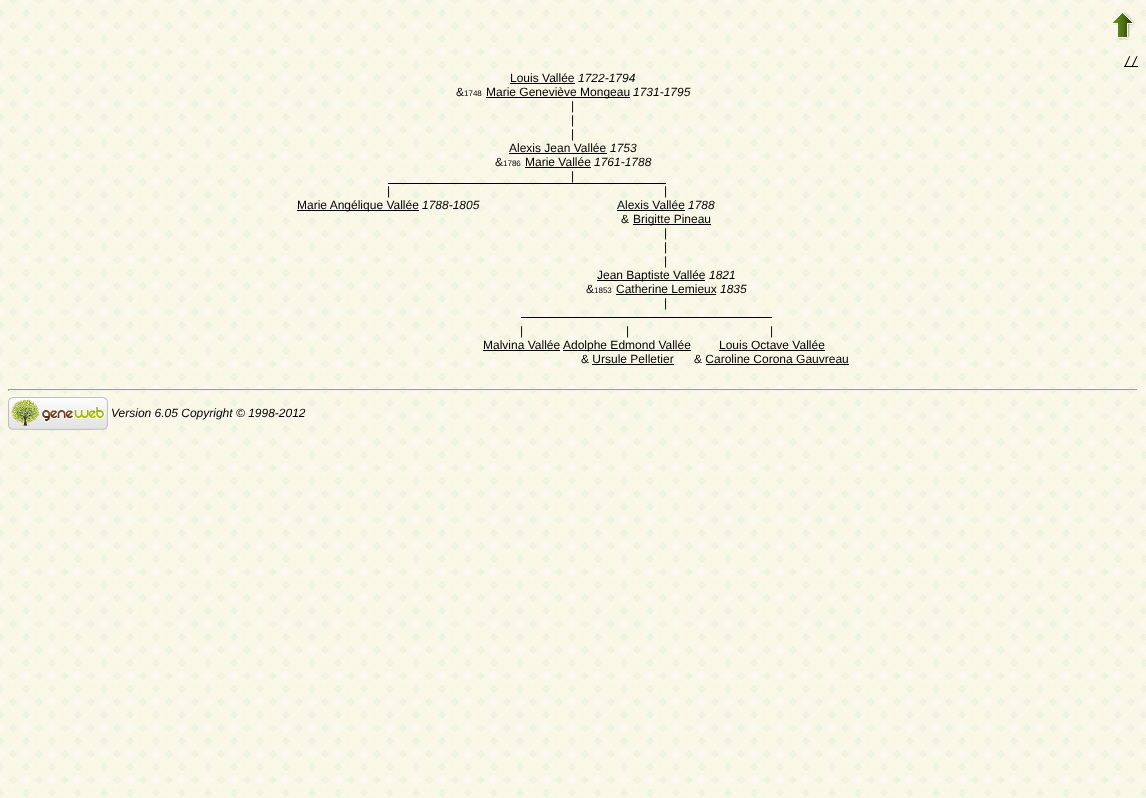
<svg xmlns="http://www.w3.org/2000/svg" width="1146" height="798">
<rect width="100%" height="100%" fill="#fff"/>
<image x="0" y="0" width="1146" height="798" href="media/1.png"/>
<image x="1113" y="12" width="22" height="28" href="media/2.png"/>
<rect x="1124" y="66" width="14" height="1" fill="#000"/>
<text x="1124" y="65" style="font-family:DejaVu Sans Mono;font-size:12px;fill:#000">//</text>
<text x="510" y="82" style="font-family:Liberation Sans;font-size:12px;fill:#000">Louis Vallée</text>
<rect x="510" y="83" width="65" height="1" fill="#000"/>
<text x="578" y="82" style="font-family:Liberation Sans;font-size:12px;font-style:italic;fill:#000">1722-1794</text>
<text x="456" y="96" style="font-family:Liberation Sans;font-size:12px;fill:#000">&amp;</text>
<text x="464" y="96" style="font-family:Liberation Sans;font-size:8px;fill:#000">1748</text>
<rect x="486" y="97" width="144" height="1" fill="#000"/>
<text x="486" y="96" style="font-family:Liberation Sans;font-size:12px;fill:#000">Marie Geneviève Mongeau</text>
<text x="633" y="96" style="font-family:Liberation Sans;font-size:12px;font-style:italic;fill:#000">1731-1795</text>
<text x="571" y="110" style="font-family:Liberation Sans;font-size:12px;fill:#000">|</text>
<text x="571" y="124" style="font-family:Liberation Sans;font-size:12px;fill:#000">|</text>
<text x="571" y="138" style="font-family:Liberation Sans;font-size:12px;fill:#000">|</text>
<text x="509" y="152" style="font-family:Liberation Sans;font-size:12px;fill:#000">Alexis Jean Vallée</text>
<rect x="509" y="153" width="98" height="1" fill="#000"/>
<text x="610" y="152" style="font-family:Liberation Sans;font-size:12px;font-style:italic;fill:#000">1753</text>
<text x="495" y="166" style="font-family:Liberation Sans;font-size:12px;fill:#000">&amp;</text>
<text x="503" y="166" style="font-family:Liberation Sans;font-size:8px;fill:#000">1786</text>
<text x="525" y="166" style="font-family:Liberation Sans;font-size:12px;fill:#000">Marie Vallée</text>
<rect x="525" y="167" width="66" height="1" fill="#000"/>
<text x="594" y="166" style="font-family:Liberation Sans;font-size:12px;font-style:italic;fill:#000">1761-1788</text>
<text x="571" y="180" style="font-family:Liberation Sans;font-size:12px;fill:#000">|</text>
<rect x="388" y="183" width="278" height="1" fill="#000"/>
<text x="387" y="195" style="font-family:Liberation Sans;font-size:12px;fill:#000">|</text>
<text x="664" y="195" style="font-family:Liberation Sans;font-size:12px;fill:#000">|</text>
<rect x="297" y="210" width="122" height="1" fill="#000"/>
<text x="297" y="209" style="font-family:Liberation Sans;font-size:12px;fill:#000">Marie Angélique Vallée</text>
<text x="422" y="209" style="font-family:Liberation Sans;font-size:12px;font-style:italic;fill:#000">1788-1805</text>
<text x="617" y="209" style="font-family:Liberation Sans;font-size:12px;fill:#000">Alexis Vallée</text>
<rect x="617" y="210" width="68" height="1" fill="#000"/>
<text x="688" y="209" style="font-family:Liberation Sans;font-size:12px;font-style:italic;fill:#000">1788</text>
<text x="621" y="223" style="font-family:Liberation Sans;font-size:12px;fill:#000">&amp;</text>
<rect x="633" y="224" width="78" height="1" fill="#000"/>
<text x="633" y="223" style="font-family:Liberation Sans;font-size:12px;fill:#000">Brigitte Pineau</text>
<text x="664" y="237" style="font-family:Liberation Sans;font-size:12px;fill:#000">|</text>
<text x="664" y="251" style="font-family:Liberation Sans;font-size:12px;fill:#000">|</text>
<text x="664" y="265" style="font-family:Liberation Sans;font-size:12px;fill:#000">|</text>
<rect x="597" y="280" width="108" height="1" fill="#000"/>
<text x="597" y="279" style="font-family:Liberation Sans;font-size:12px;fill:#000">Jean Baptiste Vallée</text>
<text x="709" y="279" style="font-family:Liberation Sans;font-size:12px;font-style:italic;fill:#000">1821</text>
<text x="586" y="293" style="font-family:Liberation Sans;font-size:12px;fill:#000">&amp;</text>
<text x="594" y="293" style="font-family:Liberation Sans;font-size:8px;fill:#000">1853</text>
<text x="616" y="293" style="font-family:Liberation Sans;font-size:12px;fill:#000">Catherine Lemieux</text>
<rect x="616" y="294" width="100" height="1" fill="#000"/>
<text x="720" y="293" style="font-family:Liberation Sans;font-size:12px;font-style:italic;fill:#000">1835</text>
<text x="664" y="307" style="font-family:Liberation Sans;font-size:12px;fill:#000">|</text>
<rect x="521" y="317" width="251" height="1" fill="#000"/>
<text x="520" y="335" style="font-family:Liberation Sans;font-size:12px;fill:#000">|</text>
<text x="626" y="335" style="font-family:Liberation Sans;font-size:12px;fill:#000">|</text>
<text x="770" y="335" style="font-family:Liberation Sans;font-size:12px;fill:#000">|</text>
<text x="483" y="349" style="font-family:Liberation Sans;font-size:12px;fill:#000">Malvina Vallée</text>
<rect x="483" y="350" width="77" height="1" fill="#000"/>
<rect x="563" y="350" width="128" height="1" fill="#000"/>
<text x="563" y="349" style="font-family:Liberation Sans;font-size:12px;fill:#000">Adolphe Edmond Vallée</text>
<text x="719" y="349" style="font-family:Liberation Sans;font-size:12px;fill:#000">Louis Octave Vallée</text>
<rect x="719" y="350" width="106" height="1" fill="#000"/>
<text x="581" y="363" style="font-family:Liberation Sans;font-size:12px;fill:#000">&amp; Ursule Pelletier</text>
<rect x="592" y="364" width="82" height="1" fill="#000"/>
<text x="694" y="363" style="font-family:Liberation Sans;font-size:12px;fill:#000">&amp; Caroline Corona Gauvreau</text>
<rect x="706" y="364" width="143" height="1" fill="#000"/>
<rect x="8" y="389" width="1130" height="1" fill="#9f9f9f"/>
<rect x="1137" y="389" width="1" height="2" fill="#eee"/>
<rect x="8" y="390" width="1130" height="1" fill="#eee"/>
<rect x="8" y="389" width="1" height="2" fill="#9f9f9f"/>
<image x="8" y="397" width="100" height="33" href="media/3.png"/>
<text x="111" y="417" style="font-family:Liberation Sans;font-size:12px;font-style:italic;fill:#000">Version 6.05 Copyright © 1998-2012</text>
</svg>
